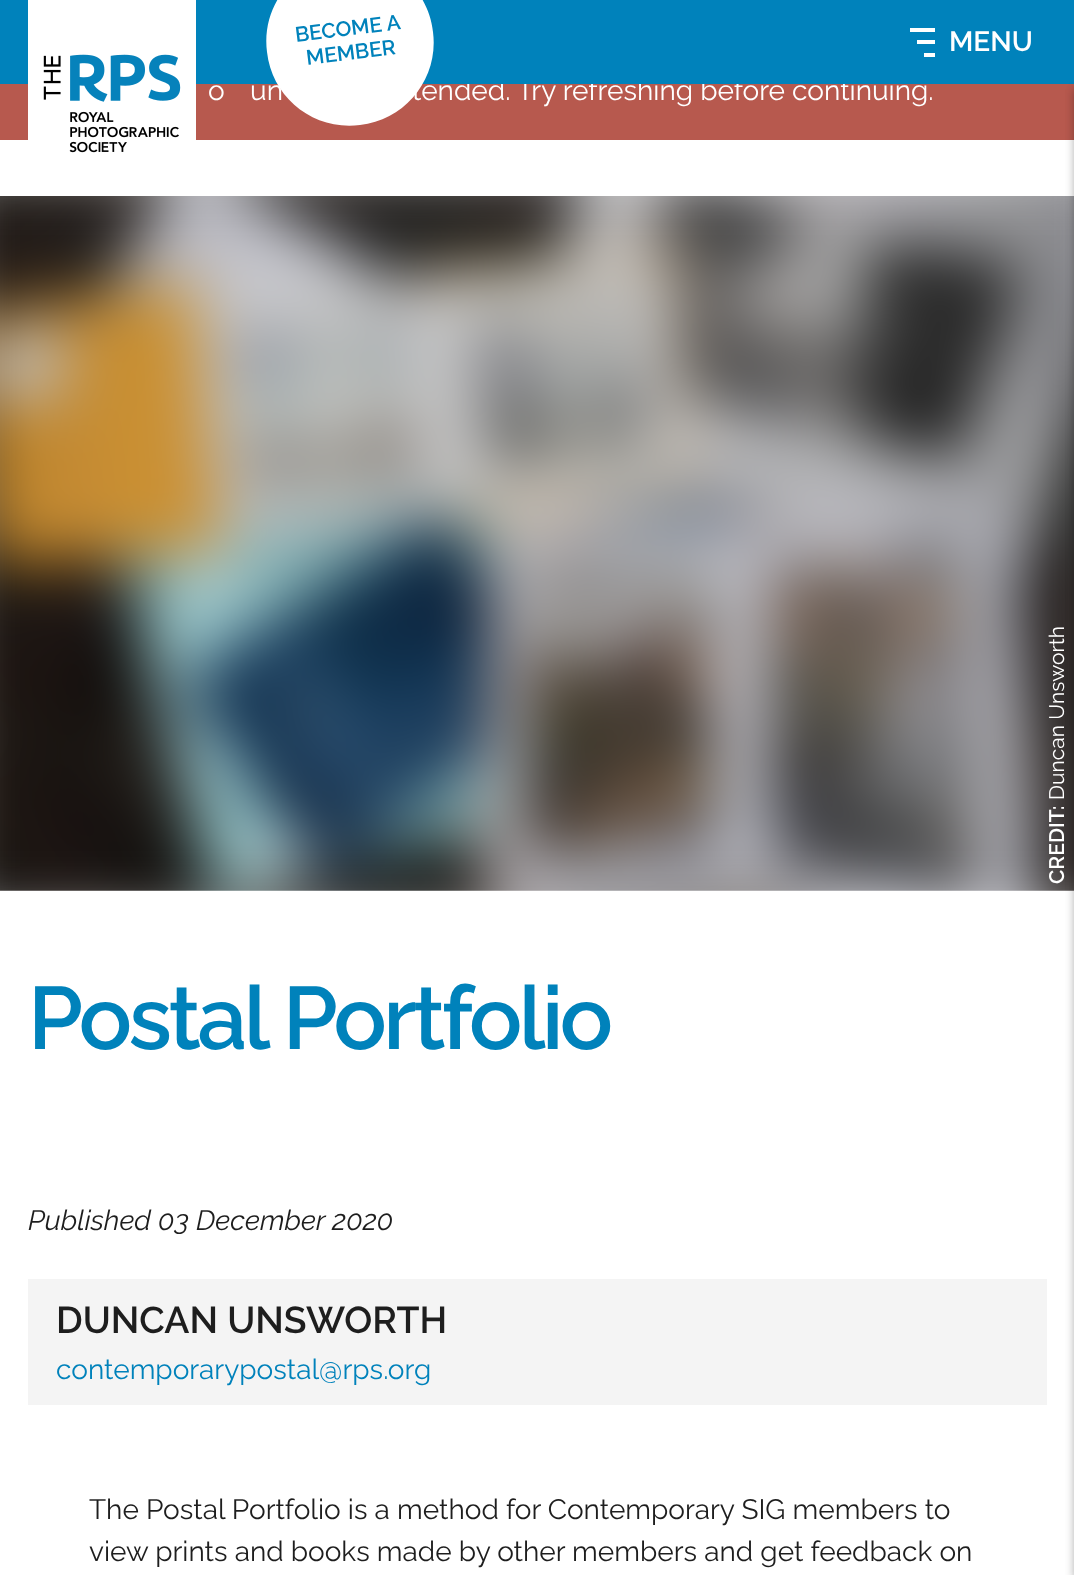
<svg xmlns="http://www.w3.org/2000/svg" width="1074" height="1575">
<rect width="100%" height="100%" fill="#fff"/>
<rect y="84" width="1074" height="56" fill="#b7594e"/>
<text x="412" y="100" style="font-family:Raleway;font-size:28px;fill:#fff">tended. Try refreshing before continuing.</text>
<rect width="1074" height="84" fill="#0082bb"/>
<rect x="28" width="168" height="140" fill="#fff"/>
<image x="43" y="54" width="138" height="99" href="media/1.png"/>
<path d="M340-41c46-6 88 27 93 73c6 46-27 88-73 93c-46 6-88-27-93-73c-6-46 27-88 73-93z" fill="#fff"/>
<text x="296" y="42" transform="rotate(-7 296 42)" style="font-family:Raleway;font-size:21px;font-weight:600;fill:#0082bb">BECOME A</text>
<text x="307" y="65" transform="rotate(-7 307 65)" style="font-family:Raleway;font-size:21px;font-weight:600;fill:#0082bb">MEMBER</text>
<rect x="910" y="28" width="25" height="4" fill="#fff"/>
<rect x="917" y="40" width="18" height="4" fill="#fff"/>
<rect x="924" y="53" width="11" height="4" fill="#fff"/>
<text x="949" y="51" style="font-family:Raleway;font-size:28px;font-weight:600;fill:#fff">MENU</text>
<image x="0" y="196" width="1074" height="695" href="media/2.png"/>
<rect x="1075" y="89" width="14" height="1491" fill="#0000003b" filter="blur(5px)"/>
<rect x="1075" y="89" width="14" height="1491" fill="#00000029" filter="blur(5px)"/>
<text x="208" y="100" style="font-family:Raleway;font-size:28px;fill:#fff">o</text>
<text x="250" y="100" style="font-family:Raleway;font-size:28px;fill:#fff">un</text>
<text x="1064" y="800" transform="rotate(-90 1064 800)" style="font-family:Raleway;font-size:21px;fill:#fff">Duncan Unsworth</text>
<text x="1064" y="884" transform="rotate(-90 1064 884)" style="font-family:Raleway;font-size:21px;font-weight:600;fill:#fff">CREDIT:</text>
<text x="28" y="1049" style="font-family:Raleway;font-size:88.5px;font-weight:600;letter-spacing:-3.5px;fill:#0082bb">Postal Portfolio</text>
<text x="28" y="1230" style="font-family:Raleway;font-size:28px;font-style:italic;fill:#1e1e1e">Published 03 December 2020</text>
<rect x="28" y="1279" width="1019" height="126" fill="#f4f4f4"/>
<text x="56" y="1333" style="font-family:Raleway;font-size:37.25px;font-weight:600;fill:#1e1e1e">DUNCAN UNSWORTH</text>
<text x="56" y="1379" style="font-family:Raleway;font-size:28px;fill:#0082bb">contemporarypostal@rps.org</text>
<text x="89" y="1519" style="font-family:Raleway;font-size:28px;fill:#1e1e1e">The Postal Portfolio is a method for Contemporary SIG members to</text>
<text x="89" y="1561" style="font-family:Raleway;font-size:28px;fill:#1e1e1e">view prints and books made by other members and get feedback on</text>
</svg>
